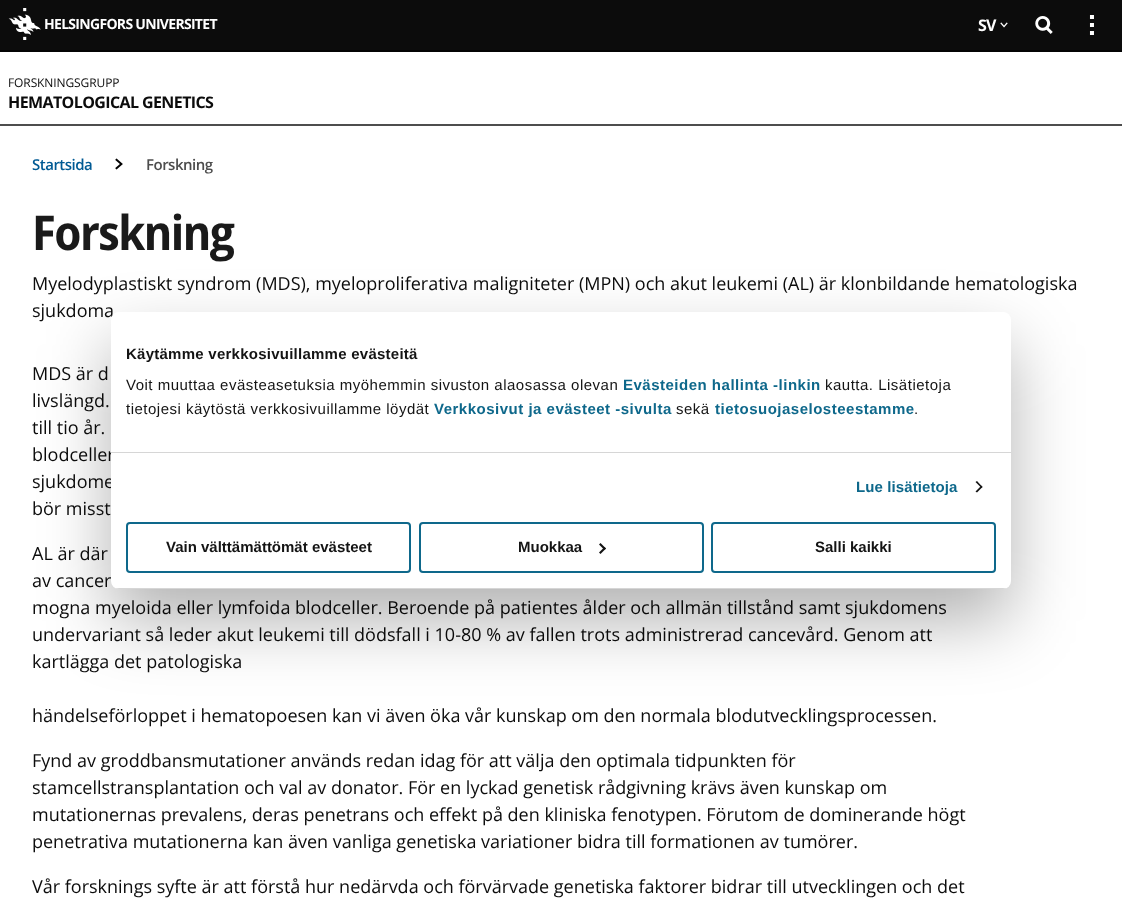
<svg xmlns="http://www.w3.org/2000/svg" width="1122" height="900">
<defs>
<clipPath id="clip1"><rect x="111" y="312" width="900" height="277" rx="8"/></clipPath>
</defs>
<rect width="100%" height="100%" fill="#fff"/>
<rect y="124" width="1122" height="2" fill="#4d4d4d"/>
<rect width="1122" height="50" fill="#0c0c0c"/>
<rect y="50" width="1122" height="2" fill="#040404"/>
<image x="8" y="8" width="33" height="32" href="media/1.png"/>
<text x="44" y="29" style="font-family:Open Sans;font-size:14px;font-weight:bold;letter-spacing:-0.7px;fill:#fff">HELSINGFORS UNIVERSITET</text>
<text x="978" y="31" style="font-family:Open Sans;font-size:16px;font-weight:bold;letter-spacing:-0.7px;fill:#fff">SV</text>
<image x="1000" y="22" width="8" height="6" href="media/2.png"/>
<image x="1035" y="16" width="18" height="18" href="media/3.png"/>
<image x="1089" y="15" width="5" height="20" href="media/4.png"/>
<text x="8" y="87" style="font-family:Open Sans;font-size:12px;letter-spacing:-0.1px;fill:#0c0c0c">FORSKNINGSGRUPP</text>
<text x="8" y="108" style="font-family:Open Sans;font-size:16px;font-weight:bold;letter-spacing:-0.6px;fill:#0c0c0c">HEMATOLOGICAL GENETICS</text>
<text x="32" y="170" style="font-family:Open Sans;font-size:15px;font-weight:600;letter-spacing:-0.5px;fill:#005a94">Startsida</text>
<image x="115" y="158" width="8" height="12" href="media/5.png"/>
<text x="146" y="170" style="font-family:Open Sans;font-size:15px;font-weight:600;letter-spacing:-0.5px;fill:#4d4d4d">Forskning</text>
<text x="32" y="250" style="font-family:'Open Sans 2';font-size:48px;font-weight:bold;letter-spacing:-1.5px;fill:#1a1a1a">Forskning</text>
<text x="32" y="290" style="font-family:Open Sans;font-size:18px;fill:#0c0c0c">Myelodyplastiskt syndrom (MDS), myeloproliferativa maligniteter (MPN) och akut leukemi (AL) är klonbildande hematologiska</text>
<text x="32" y="317" style="font-family:Open Sans;font-size:18px;fill:#0c0c0c">sjukdoma</text>
<text x="32" y="380" style="font-family:Open Sans;font-size:18px;fill:#0c0c0c">MDS är d</text>
<text x="32" y="407" style="font-family:Open Sans;font-size:18px;fill:#0c0c0c">livslängd.</text>
<text x="32" y="434" style="font-family:Open Sans;font-size:18px;fill:#0c0c0c">till tio år.</text>
<text x="32" y="461" style="font-family:Open Sans;font-size:18px;fill:#0c0c0c">blodceller</text>
<text x="32" y="488" style="font-family:Open Sans;font-size:18px;fill:#0c0c0c">sjukdome</text>
<text x="32" y="515" style="font-family:Open Sans;font-size:18px;fill:#0c0c0c">bör misst</text>
<text x="32" y="560" style="font-family:Open Sans;font-size:18px;fill:#0c0c0c">AL är där</text>
<text x="32" y="587" style="font-family:Open Sans;font-size:18px;fill:#0c0c0c">av cancer</text>
<text x="32" y="614" style="font-family:Open Sans;font-size:18px;fill:#0c0c0c">mogna myeloida eller lymfoida blodceller. Beroende på patientes ålder och allmän tillstånd samt sjukdomens</text>
<text x="32" y="641" style="font-family:Open Sans;font-size:18px;fill:#0c0c0c">undervariant så leder akut leukemi till dödsfall i 10-80 % av fallen trots administrerad cancevård. Genom att</text>
<text x="32" y="668" style="font-family:Open Sans;font-size:18px;fill:#0c0c0c">kartlägga det patologiska</text>
<text x="32" y="722" style="font-family:Open Sans;font-size:18px;fill:#0c0c0c">händelseförloppet i hematopoesen kan vi även öka vår kunskap om den normala blodutvecklingsprocessen.</text>
<text x="32" y="767" style="font-family:Open Sans;font-size:18px;fill:#0c0c0c">Fynd av groddbansmutationer används redan idag för att välja den optimala tidpunkten för</text>
<text x="32" y="794" style="font-family:Open Sans;font-size:18px;fill:#0c0c0c">stamcellstransplantation och val av donator. För en lyckad genetisk rådgivning krävs även kunskap om</text>
<text x="32" y="821" style="font-family:Open Sans;font-size:18px;fill:#0c0c0c">mutationernas prevalens, deras penetrans och effekt på den kliniska fenotypen. Förutom de dominerande högt</text>
<text x="32" y="848" style="font-family:Open Sans;font-size:18px;fill:#0c0c0c">penetrativa mutationerna kan även vanliga genetiska variationer bidra till formationen av tumörer.</text>
<text x="32" y="893" style="font-family:Open Sans;font-size:18px;fill:#0c0c0c">Vår forsknings syfte är att förstå hur nedärvda och förvärvade genetiska faktorer bidrar till utvecklingen och det</text>
<rect x="111" y="344" width="900" height="277" rx="8" fill="#0000004d" filter="blur(34px)"/>
<rect x="111" y="312" width="900" height="277" rx="8" fill="#fff"/>
<rect x="111" y="452" width="900" height="1" fill="#d6d6d6"/>
<text x="126" y="359" style="font-family:Liberation Sans;font-size:15px;font-weight:bold;letter-spacing:0.25px;fill:#141414">Käytämme verkkosivuillamme evästeitä</text>
<text x="126" y="390" style="font-family:Liberation Sans;font-size:15px;letter-spacing:0.5px;fill:#141414">Voit muuttaa evästeasetuksia myöhemmin sivuston alaosassa olevan</text>
<text x="623" y="390" style="font-family:Liberation Sans;font-size:15px;font-weight:bold;letter-spacing:0.5px;fill:#0e688b">Evästeiden hallinta -linkin</text>
<text x="825" y="390" style="font-family:Liberation Sans;font-size:15px;letter-spacing:0.5px;fill:#141414">kautta. Lisätietoja</text>
<text x="126" y="414" style="font-family:Liberation Sans;font-size:15px;letter-spacing:0.5px;fill:#141414">tietojesi käytöstä verkkosivuillamme löydät</text>
<text x="434" y="414" style="font-family:Liberation Sans;font-size:15px;font-weight:bold;letter-spacing:0.5px;fill:#0e688b">Verkkosivut ja evästeet -sivulta</text>
<text x="676" y="414" style="font-family:Liberation Sans;font-size:15px;letter-spacing:0.5px;fill:#141414">sekä</text>
<text x="715" y="414" style="font-family:Liberation Sans;font-size:15px;font-weight:bold;letter-spacing:0.5px;fill:#0e688b">tietosuojaselosteestamme</text>
<text x="914" y="414" style="font-family:Liberation Sans;font-size:15px;letter-spacing:0.5px;fill:#141414">.</text>
<text x="856" y="492" style="font-family:Liberation Sans;font-size:15px;font-weight:bold;letter-spacing:0.1px;fill:#0e688b">Lue lisätietoja</text>
<path d="M977 481l5.5 6l-1 1l-6-6z" fill="#141414"/>
<path d="M981.5 485.5l1 1.5l-5.5 5.5l-1.5-1z" fill="#141414"/>
<g clip-path="url(#clip1)">
<rect x="111" y="588" width="900" height="1" fill="#d6d6d6"/>
</g>
<rect x="127" y="523" width="283" height="49" rx="3" fill="none" stroke="#0e688b" stroke-width="2"/>
<text x="166" y="552" style="font-family:Liberation Sans;font-size:15px;font-weight:bold;fill:#141414">Vain välttämättömät evästeet</text>
<rect x="420" y="523" width="283" height="49" rx="3" fill="none" stroke="#0e688b" stroke-width="2"/>
<text x="518" y="552" style="font-family:Liberation Sans;font-size:15px;font-weight:bold;fill:#141414">Muokkaa</text>
<path d="M600.5 543l5.5 5.5l-1.5 1.5l-5.5-5.5z" fill="#141414"/>
<path d="M604.5 547l1.5 1.5l-5.5 5.5l-1.5-1.5z" fill="#141414"/>
<rect x="712" y="523" width="283" height="49" rx="3" fill="none" stroke="#0e688b" stroke-width="2"/>
<text x="815" y="552" style="font-family:Liberation Sans;font-size:15px;font-weight:bold;fill:#141414">Salli kaikki</text>
</svg>
